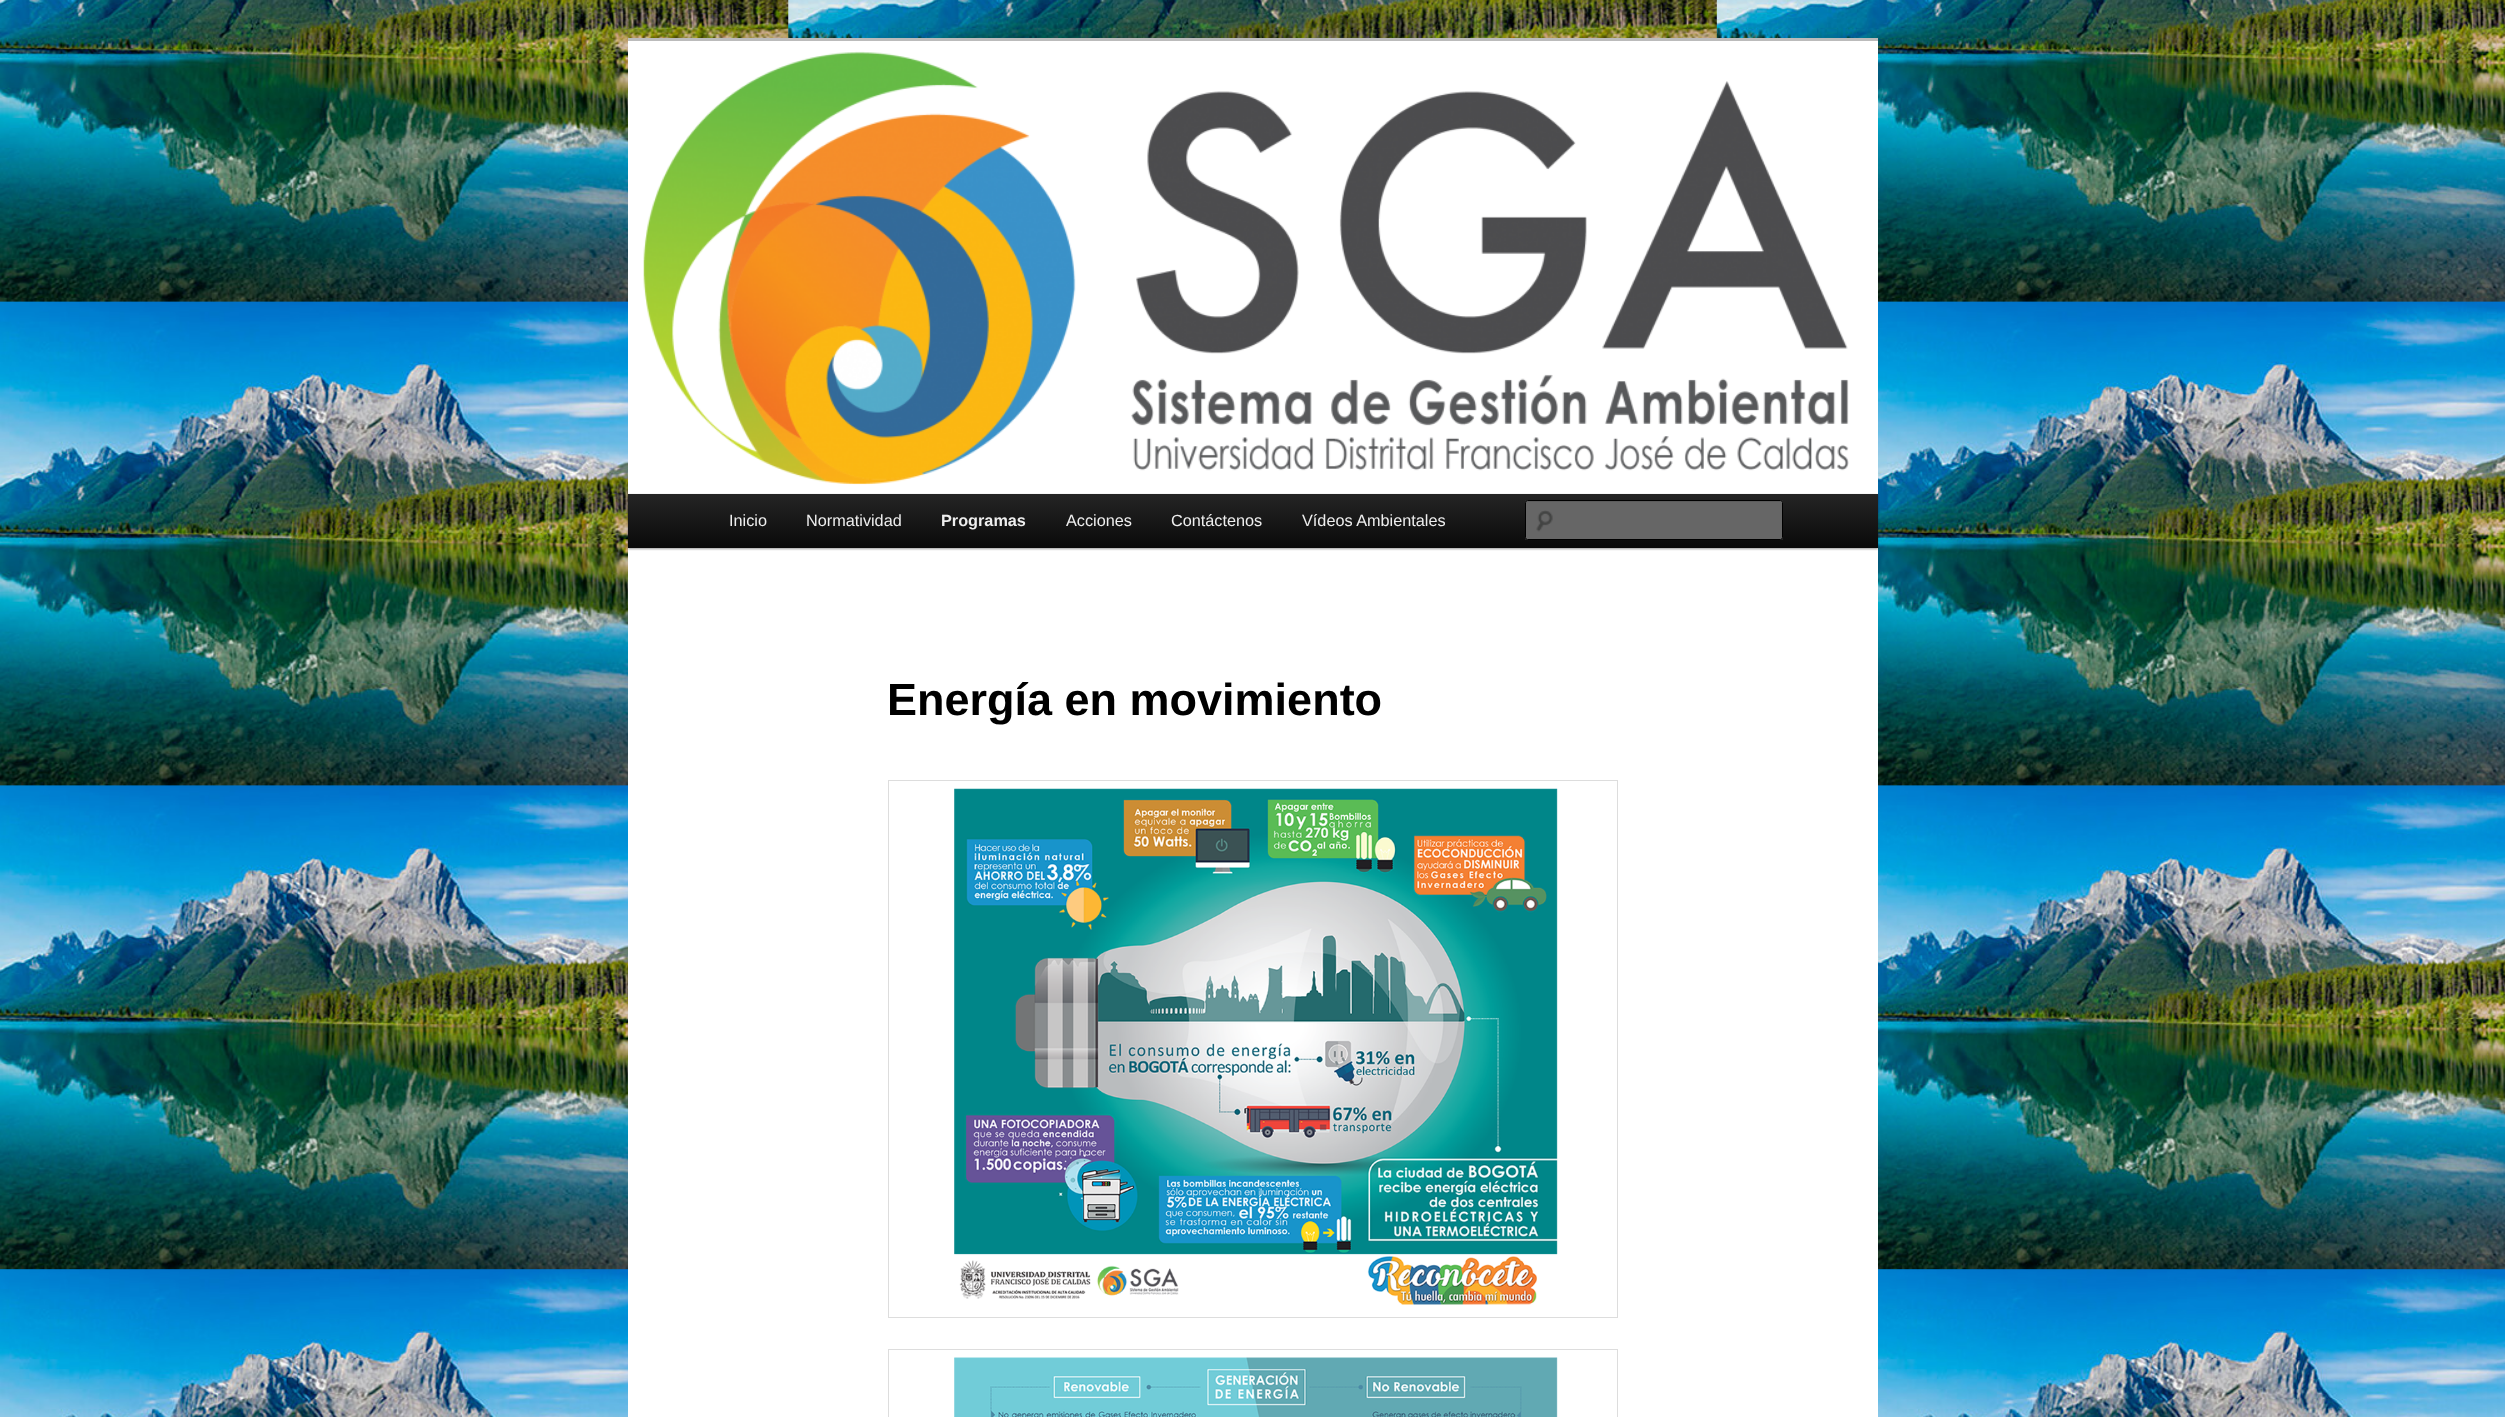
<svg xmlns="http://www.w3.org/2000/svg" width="2505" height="1417">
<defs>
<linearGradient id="g1" gradientUnits="userSpaceOnUse" x1="1253" y1="494" x2="1253" y2="548"><stop offset="0" stop-color="#252525"/><stop offset="1" stop-color="#0a0a0a"/></linearGradient>
</defs>
<rect width="100%" height="100%" fill="#fff"/>
<image x="0" y="0" width="2505" height="1417" href="media/1.png"/>
<rect x="628" y="41" width="1250" height="1376" fill="#fff"/>
<rect x="628" y="38" width="1250" height="3" fill="#bbb"/>
<image x="643" y="51" width="1206" height="434" href="media/2.png"/>
<rect x="628" y="495" width="1250" height="54" fill="#00000066" filter="blur(1px)"/>
<rect x="628" y="494" width="1250" height="54" fill="url(#g1)"/>
<text x="729" y="526" style="font-family:Liberation Sans;font-size:16.25px;fill:#eee">Inicio</text>
<text x="806" y="526" style="font-family:Liberation Sans;font-size:16.25px;fill:#eee">Normatividad</text>
<text x="941" y="526" style="font-family:Liberation Sans;font-size:16.25px;font-weight:bold;fill:#eee">Programas</text>
<text x="1066" y="526" style="font-family:Liberation Sans;font-size:16.25px;fill:#eee">Acciones</text>
<text x="1171" y="526" style="font-family:Liberation Sans;font-size:16.25px;fill:#eee">Contáctenos</text>
<text x="1302" y="526" style="font-family:Liberation Sans;font-size:16.25px;fill:#eee">Vídeos Ambientales</text>
<rect x="1525" y="500" width="258" height="40" rx="2.5" fill="#666"/>
<image x="1536" y="510" width="17" height="22" href="media/3.png"/>
<path d="M1528 502h252c1 0 1 1 1 2c0-1 0-3-1-3h-254v3c0-1 1-2 2-2z" fill="#5c5c5c"/>
<rect x="1525.5" y="500.5" width="257" height="39" rx="2" fill="none" stroke="#000"/>
<text x="887" y="715" style="font-family:Liberation Sans;font-size:45px;font-weight:bold;fill:#000">Energía en movimiento</text>
<rect x="888.5" y="780.5" width="729" height="537" fill="none" stroke="#ddd"/>
<image x="954" y="788" width="604" height="517" href="media/4.png"/>
<rect x="888.5" y="1349.5" width="729" height="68" fill="none" stroke="#ddd"/>
<image x="954" y="1357" width="604" height="60" href="media/5.png"/>
</svg>
